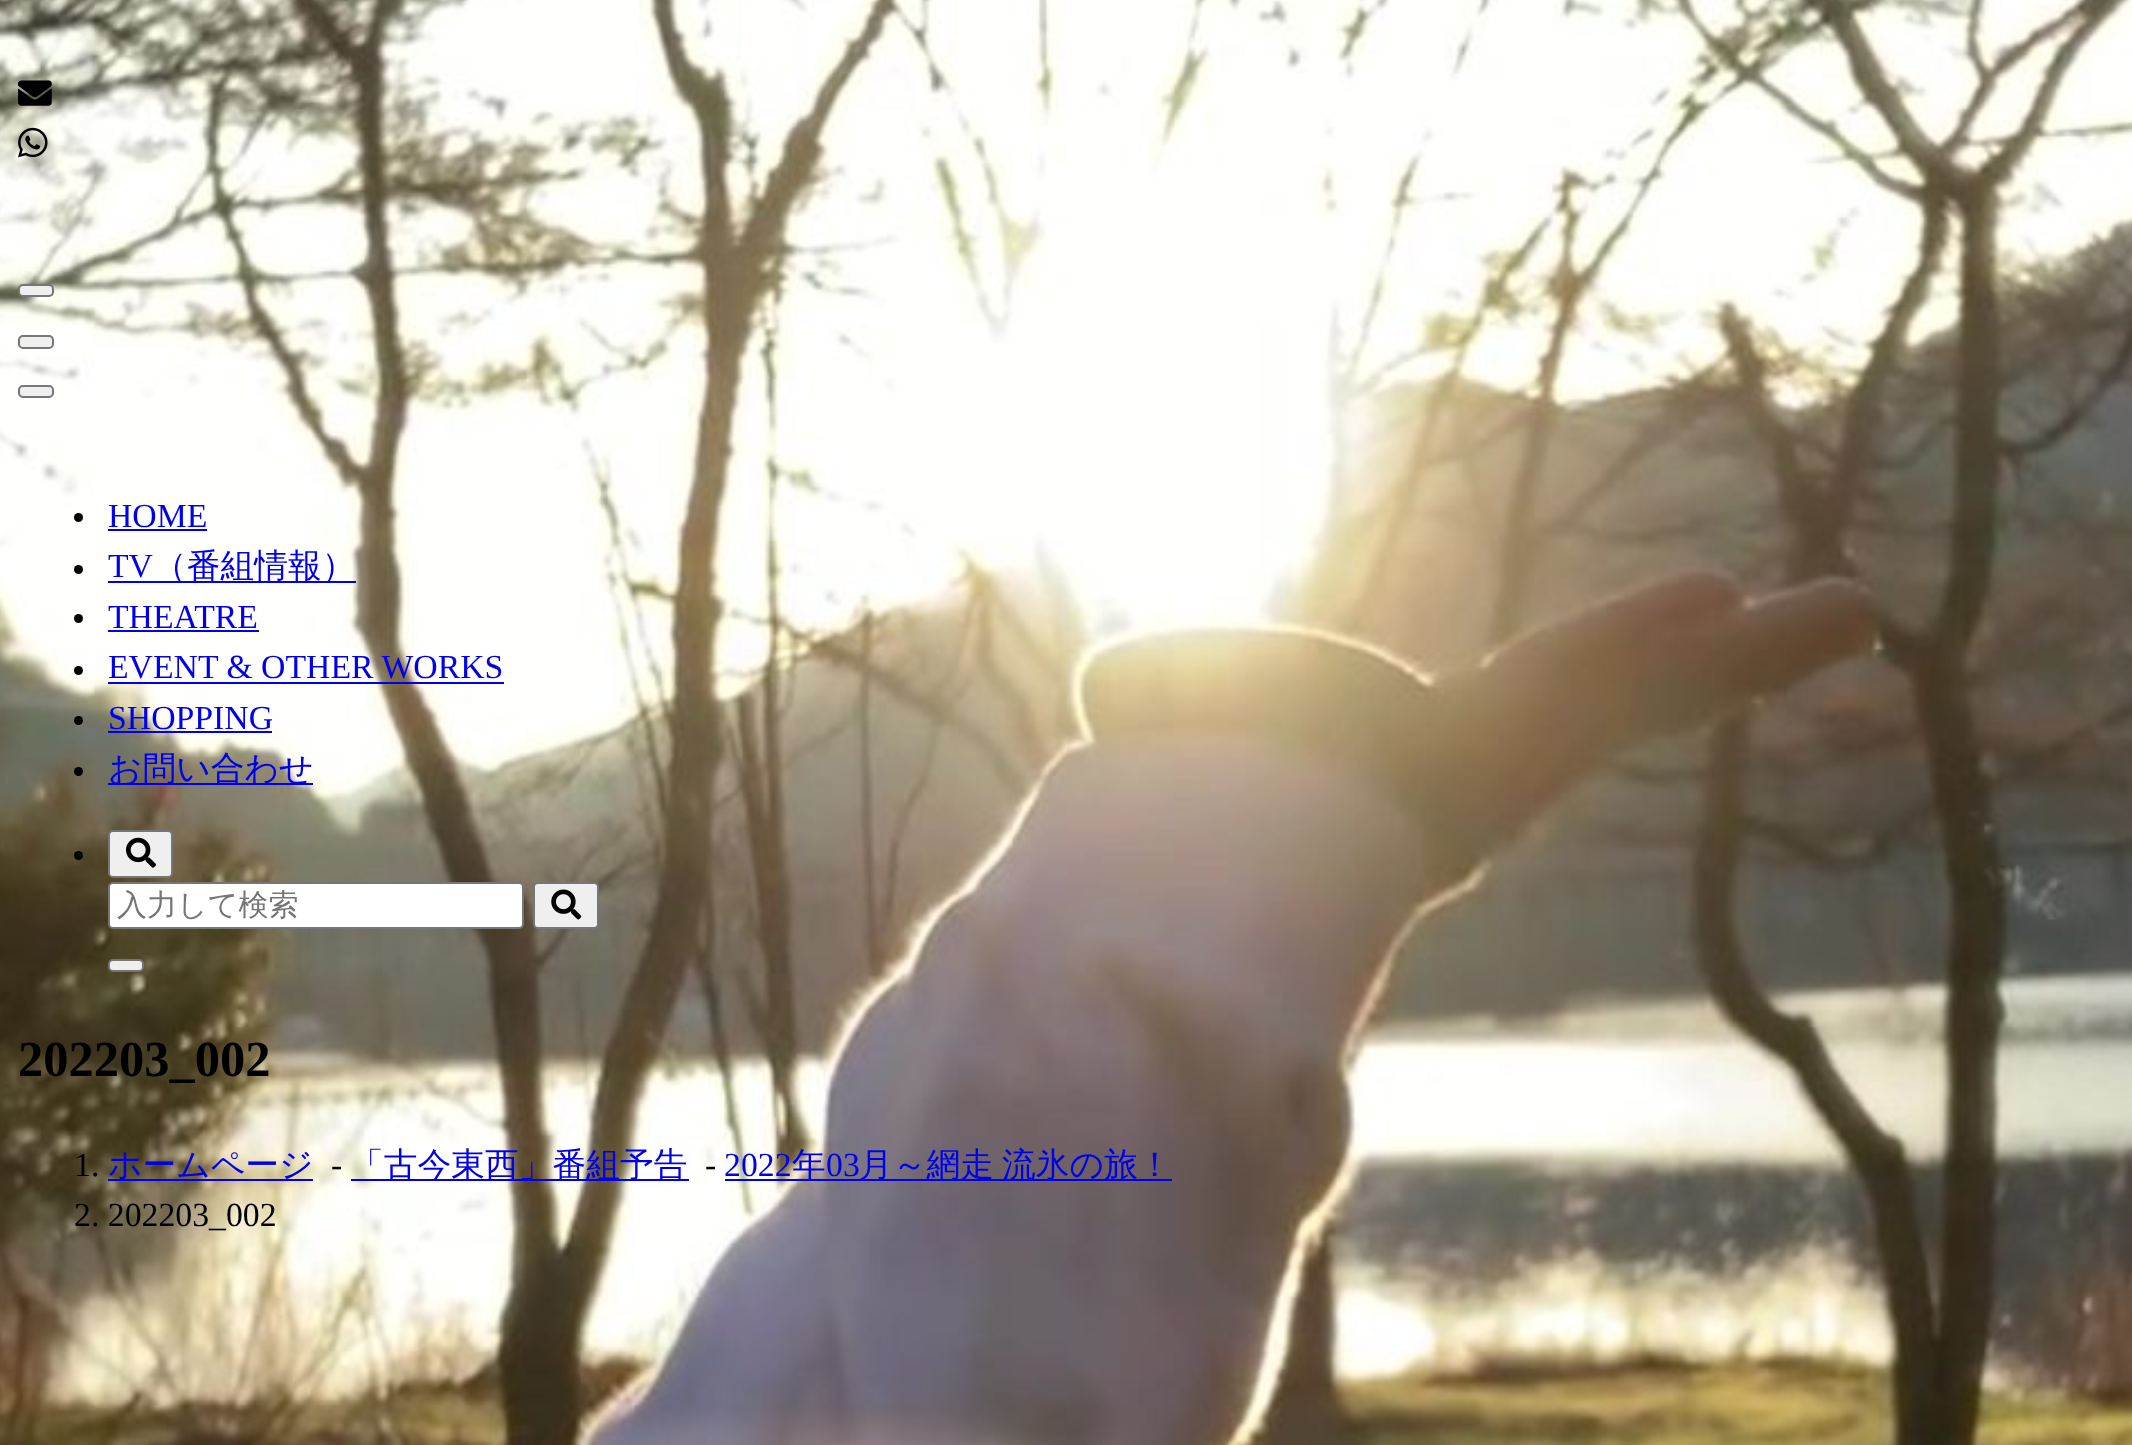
<svg xmlns="http://www.w3.org/2000/svg" width="2132" height="1445">
<rect width="100%" height="100%" fill="#fff"/>
<image x="0" y="0" width="2132" height="1445" href="media/1.png"/>
<image x="18" y="80" width="34" height="26" href="media/2.png"/>
<image x="18" y="127" width="30" height="31" href="media/3.png"/>
<rect x="19" y="285" width="34" height="11" rx="4" fill="#efefef" stroke="#767676" stroke-width="2"/>
<rect x="19" y="336" width="34" height="12" rx="4" fill="#efefef" stroke="#767676" stroke-width="2"/>
<rect x="19" y="386" width="34" height="11" rx="4" fill="#efefef" stroke="#767676" stroke-width="2"/>
<circle cx="78.5" cy="517.5" r="4.5" fill="#000"/>
<text x="108" y="527" style="font-family:Liberation Serif;font-size:33.75px;fill:#00e">HOME</text>
<rect x="108" y="529" width="99" height="2" fill="#00e"/>
<circle cx="78.5" cy="569.5" r="4.5" fill="#000"/>
<text x="108" y="577" style="font-family:Liberation Serif;font-size:33.75px;fill:#00e">TV</text>
<rect x="108" y="581" width="248" height="2" fill="#00e"/>
<text x="153" y="577" style="font-family:WenQuanYi Zen Hei;font-size:33.75px;font-weight:500;fill:#00e">（番組情報）</text>
<circle cx="78.5" cy="618.5" r="4.5" fill="#000"/>
<text x="108" y="628" style="font-family:Liberation Serif;font-size:33.75px;fill:#00e">THEATRE</text>
<rect x="108" y="630" width="151" height="2" fill="#00e"/>
<circle cx="78.5" cy="670.5" r="4.5" fill="#000"/>
<text x="108" y="678" style="font-family:Liberation Serif;font-size:33.75px;fill:#00e">EVENT &amp; OTHER WORKS</text>
<rect x="108" y="682" width="396" height="2" fill="#00e"/>
<circle cx="78.5" cy="720.5" r="4.5" fill="#000"/>
<text x="108" y="729" style="font-family:Liberation Serif;font-size:33.75px;fill:#00e">SHOPPING</text>
<rect x="108" y="731" width="164" height="2" fill="#00e"/>
<circle cx="78.5" cy="771.5" r="4.5" fill="#000"/>
<rect x="108" y="783" width="205" height="2" fill="#00e"/>
<text x="108" y="780" style="font-family:WenQuanYi Zen Hei;font-size:33.75px;font-weight:500;fill:#00e">お問い合わせ</text>
<circle cx="78.5" cy="855.5" r="4.5" fill="#000"/>
<rect x="109" y="831" width="63" height="46" rx="4" fill="#efefef" stroke="#767676" stroke-width="2"/>
<image x="126" y="837" width="30" height="31" href="media/4.png"/>
<rect x="109" y="883" width="414" height="45" rx="4" fill="#fff" stroke="#767676" stroke-width="2"/>
<text x="117" y="915" style="font-family:WenQuanYi Zen Hei;font-size:30px;font-weight:500;fill:#757575">入力して検索</text>
<rect x="534" y="883" width="64" height="45" rx="4" fill="#efefef" stroke="#767676" stroke-width="2"/>
<image x="551" y="889" width="31" height="31" href="media/5.png"/>
<rect x="109" y="960" width="34" height="11" rx="4" fill="#efefef" stroke="#767676" stroke-width="2"/>
<text x="18" y="1076" style="font-family:Liberation Serif;font-size:50.5px;font-weight:bold;fill:#000">202203_002</text>
<text x="74" y="1176" style="font-family:Liberation Serif;font-size:33.75px;fill:#000">1.</text>
<rect x="108" y="1179" width="205" height="2" fill="#00e"/>
<text x="108" y="1176" style="font-family:WenQuanYi Zen Hei;font-size:33.75px;font-weight:500;fill:#00e">ホームページ</text>
<text x="331" y="1176" style="font-family:Liberation Serif;font-size:33.75px;fill:#000">-</text>
<rect x="351" y="1179" width="338" height="2" fill="#00e"/>
<text x="350" y="1176" style="font-family:WenQuanYi Zen Hei;font-size:33.75px;font-weight:500;fill:#00e">「古今東西」番組予告</text>
<text x="705" y="1176" style="font-family:Liberation Serif;font-size:33.75px;fill:#000">-</text>
<text x="724" y="1176" style="font-family:Liberation Serif;font-size:33.75px;fill:#00e">2022</text>
<rect x="725" y="1179" width="447" height="2" fill="#00e"/>
<text x="792" y="1176" style="font-family:WenQuanYi Zen Hei;font-size:33.75px;font-weight:500;fill:#00e">年</text>
<text x="826" y="1176" style="font-family:Liberation Serif;font-size:33.75px;fill:#00e">03</text>
<text x="859" y="1176" word-spacing="-2" style="font-family:WenQuanYi Zen Hei;font-size:33.75px;font-weight:500;fill:#00e">月～網走 流氷の旅！</text>
<text x="74" y="1226" style="font-family:Liberation Serif;font-size:33.75px;fill:#000">2. 202203_002</text>
</svg>
